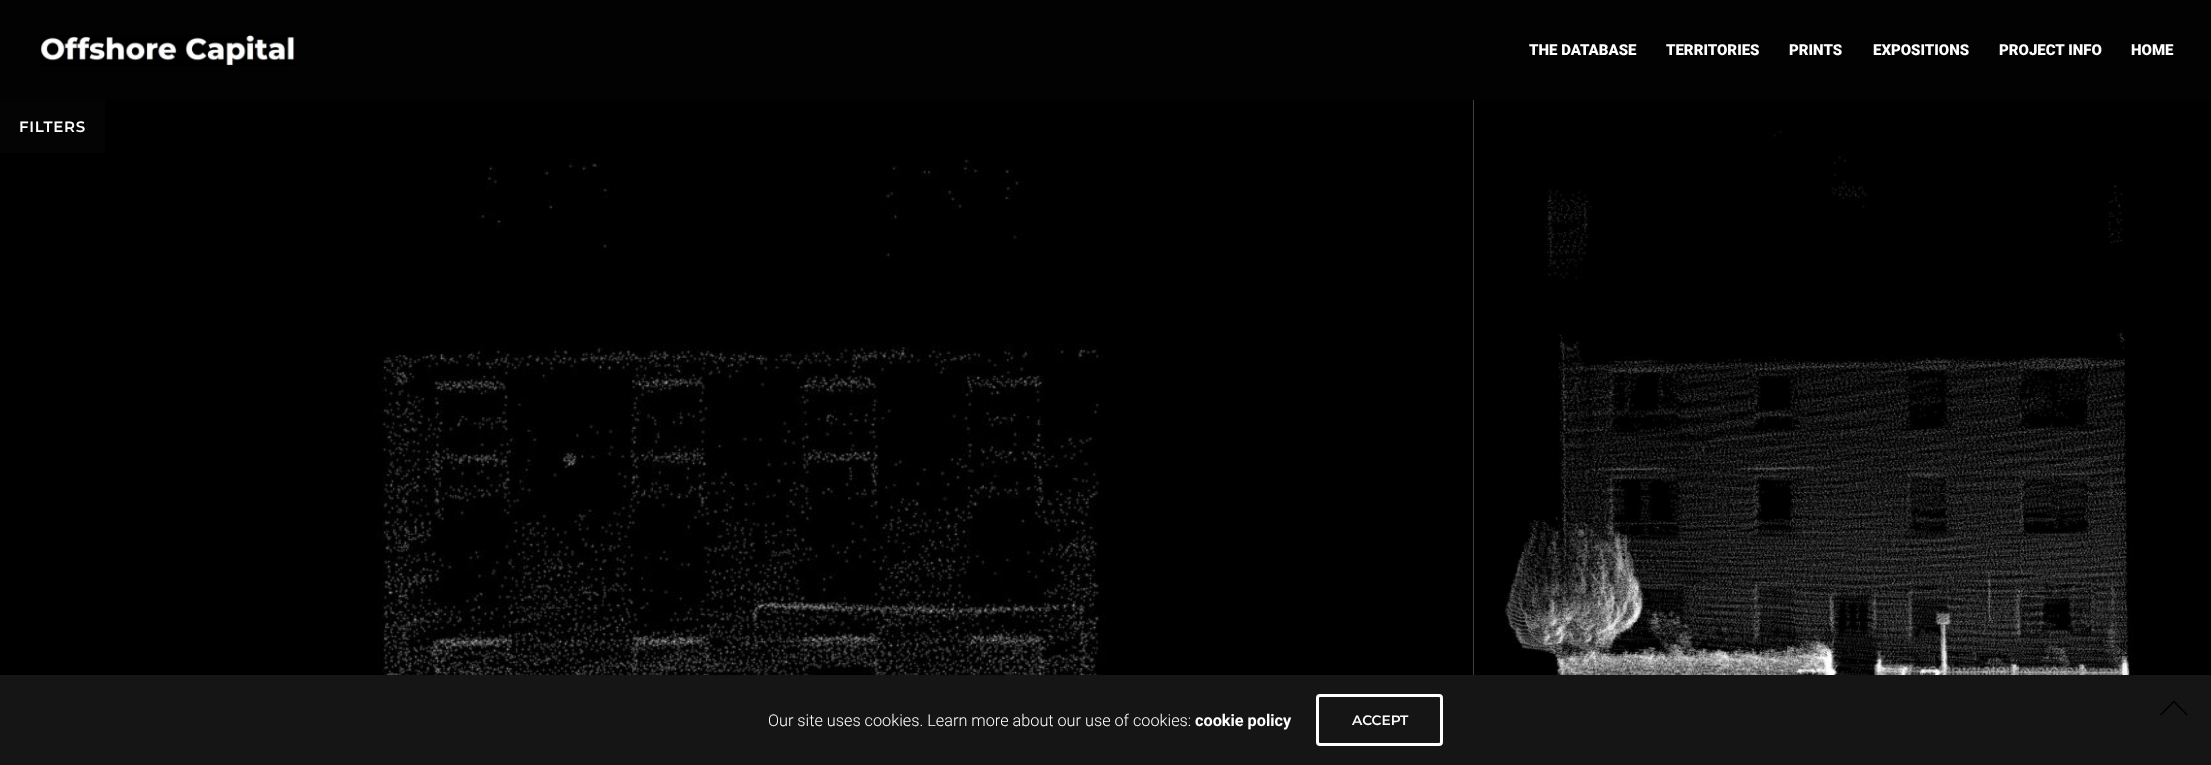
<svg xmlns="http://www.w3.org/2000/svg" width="2211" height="765">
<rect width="100%" height="100%" fill="#fff"/>
<rect width="2211" height="100" fill="#020202"/>
<image x="40" y="35" width="255" height="31" href="media/1.png"/>
<text x="1529" y="55" style="font-family:Roboto;font-size:15px;font-weight:900;fill:#fff">THE DATABASE</text>
<text x="1666" y="55" style="font-family:Roboto;font-size:15px;font-weight:900;fill:#fff">TERRITORIES</text>
<text x="1789" y="55" style="font-family:Roboto;font-size:15px;font-weight:900;fill:#fff">PRINTS</text>
<text x="1873" y="55" style="font-family:Roboto;font-size:15px;font-weight:900;fill:#fff">EXPOSITIONS</text>
<text x="1999" y="55" style="font-family:Roboto;font-size:15px;font-weight:900;fill:#fff">PROJECT INFO</text>
<text x="2131" y="55" style="font-family:Roboto;font-size:15px;font-weight:900;fill:#fff">HOME</text>
<image x="0" y="100" width="1474" height="575" href="media/2.png"/>
<image x="1474" y="100" width="737" height="575" href="media/3.png"/>
<rect y="100" width="105" height="53" fill="#040404"/>
<text x="19" y="132" style="font-family:Montserrat;font-size:15px;font-weight:600;letter-spacing:0.75px;fill:#fff">FILTERS</text>
<rect y="675" width="2211" height="90" fill="#151515"/>
<path d="M2160.5 715l13.5-13.5l13 13.5" fill="none" stroke="#000" stroke-width="1.6" stroke-linejoin="bevel"/>
<text x="768" y="726" style="font-family:Roboto;font-size:16.25px;font-weight:300;fill:#fff">Our site uses cookies. Learn more about our use of cookies:</text>
<text x="1195" y="726" style="font-family:Roboto;font-size:16.25px;font-weight:bold;fill:#fff">cookie policy</text>
<rect x="1317.5" y="695.5" width="124" height="49" rx="2.5" fill="none" stroke="#fff" stroke-width="3"/>
<text x="1352" y="725" style="font-family:Montserrat;font-size:13.75px;font-weight:600;fill:#fff">ACCEPT</text>
</svg>
